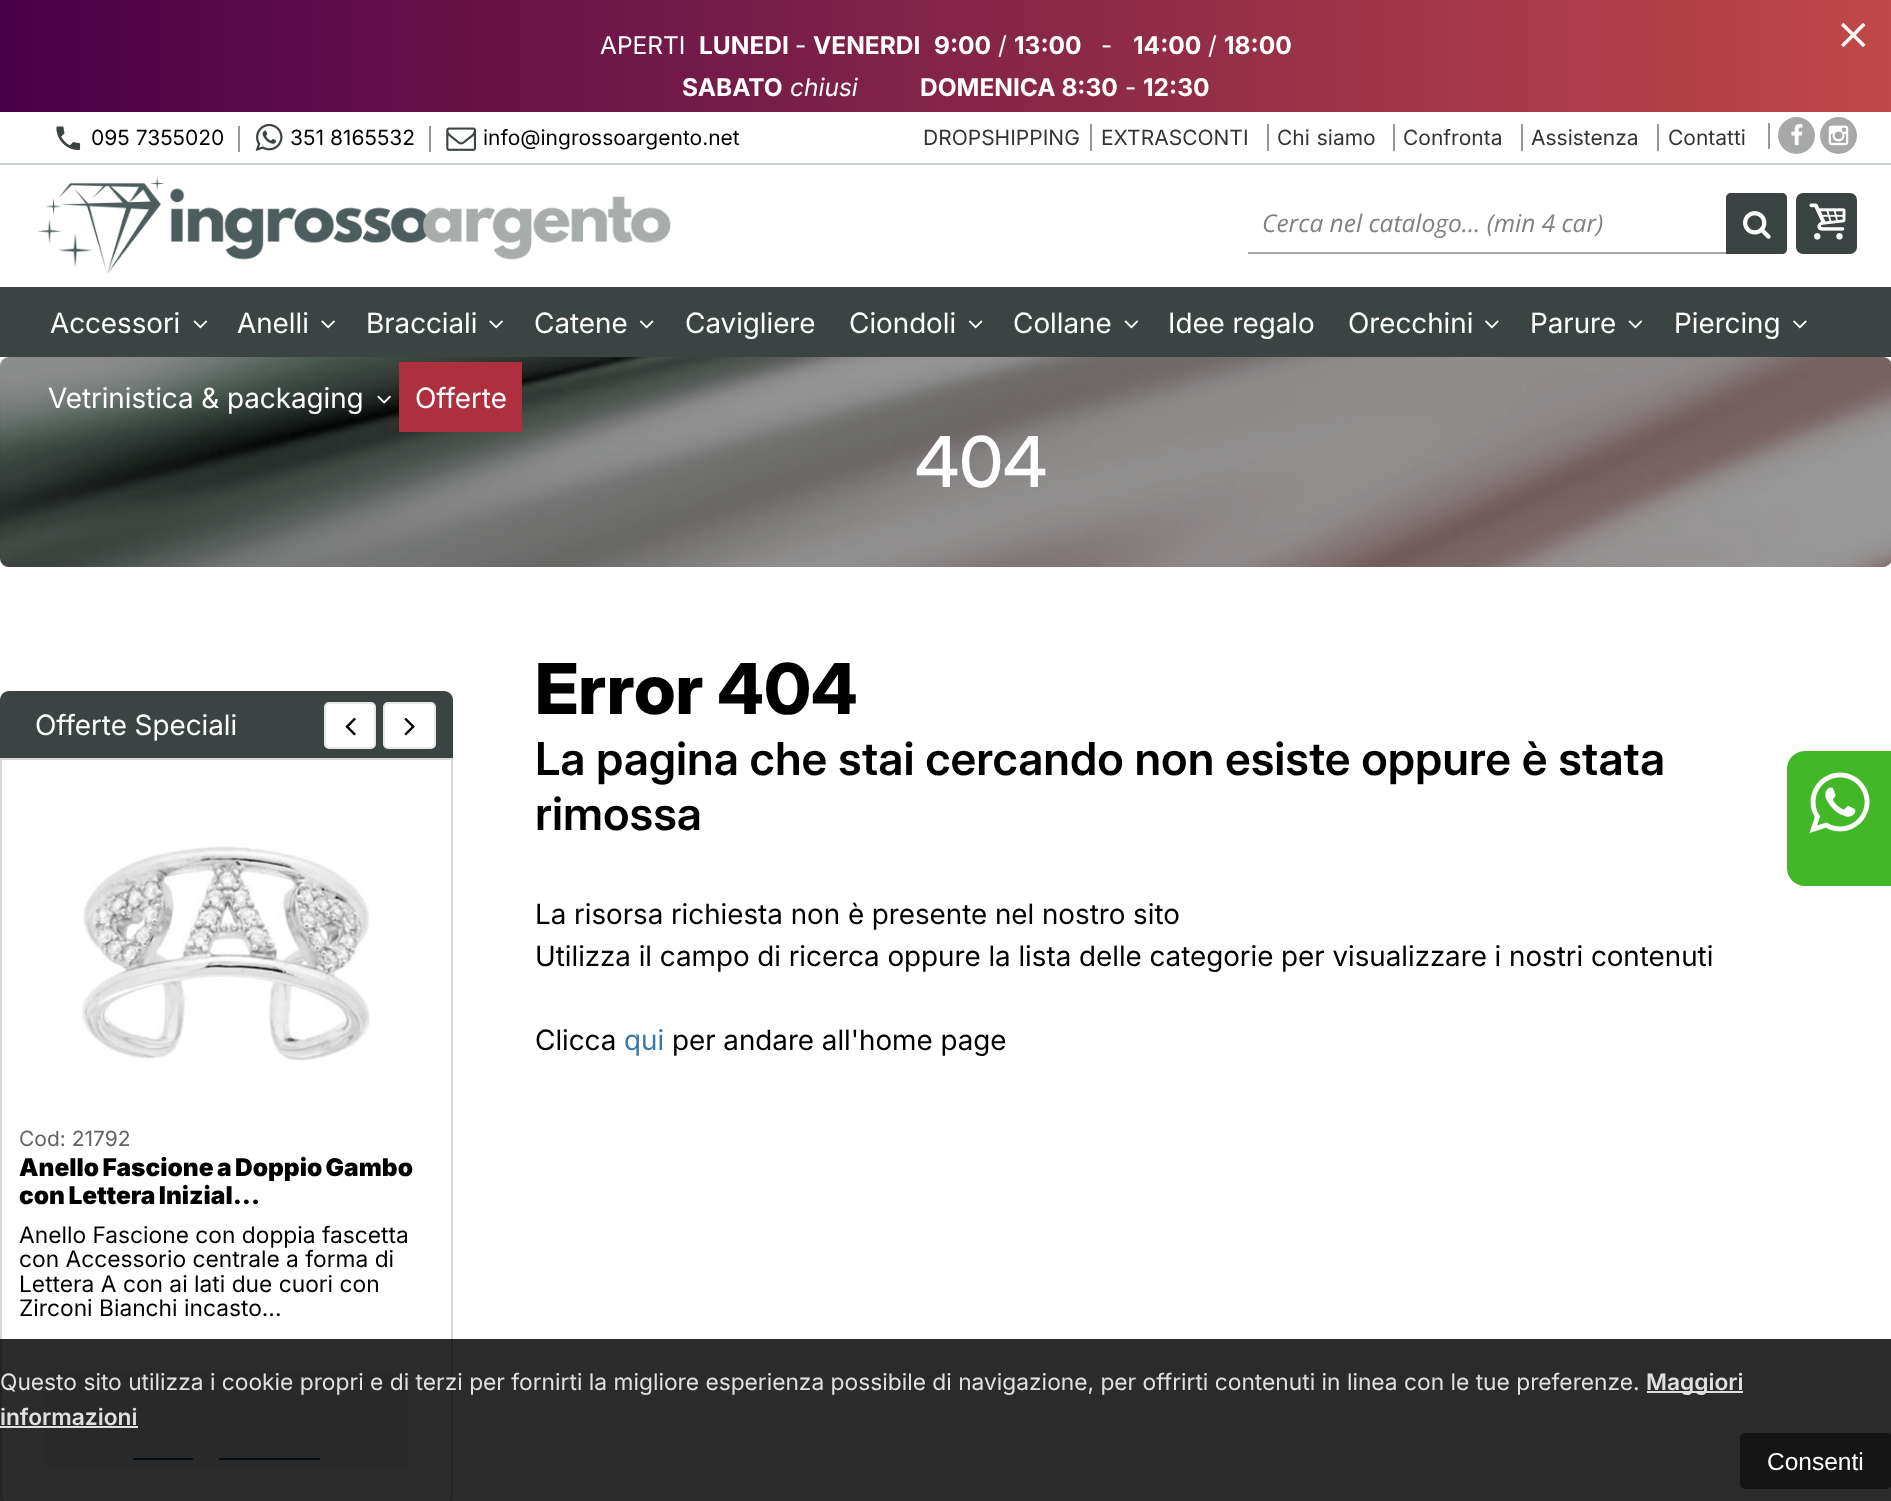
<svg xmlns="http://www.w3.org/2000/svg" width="1891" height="1501">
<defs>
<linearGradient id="g1" gradientUnits="userSpaceOnUse" x1="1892" y1="56" x2="0" y2="56"><stop offset="0" stop-color="#c04848"/><stop offset="1" stop-color="#480048"/></linearGradient>
</defs>
<rect width="100%" height="100%" fill="#fff"/>
<rect width="1891" height="112" fill="url(#g1)"/>
<text x="600" y="54" style="font-family:Inter;font-size:24.5px;fill:#fff">APERTI</text>
<text x="699" y="54" style="font-family:Inter;font-size:24.5px;font-weight:bold;fill:#fff">LUNEDI</text>
<text x="795" y="54" style="font-family:Inter;font-size:24.5px;fill:#fff">-</text>
<text x="813" y="54" style="font-family:Inter;font-size:24.5px;font-weight:bold;fill:#fff">VENERDI</text>
<text x="934" y="54" style="font-family:Inter;font-size:24.5px;font-weight:bold;fill:#fff">9:00</text>
<text x="998" y="54" style="font-family:Inter;font-size:24.5px;fill:#fff">/</text>
<text x="1014" y="54" style="font-family:Inter;font-size:24.5px;font-weight:bold;fill:#fff">13:00</text>
<text x="1101" y="54" style="font-family:Inter;font-size:24.5px;fill:#fff">-</text>
<text x="1133" y="54" style="font-family:Inter;font-size:24.5px;font-weight:bold;fill:#fff">14:00</text>
<text x="1208" y="54" style="font-family:Inter;font-size:24.5px;fill:#fff">/</text>
<text x="1224" y="54" style="font-family:Inter;font-size:24.5px;font-weight:bold;fill:#fff">18:00</text>
<text x="682" y="96" style="font-family:Inter;font-size:24.5px;font-weight:bold;fill:#fff">SABATO</text>
<text x="790" y="96" style="font-family:Inter;font-size:24.5px;font-style:italic;fill:#fff">chiusi</text>
<text x="920" y="96" style="font-family:Inter;font-size:24.5px;font-weight:bold;fill:#fff">DOMENICA 8:30</text>
<text x="1125" y="96" style="font-family:Inter;font-size:24.5px;fill:#fff">-</text>
<text x="1143" y="96" style="font-family:Inter;font-size:24.5px;font-weight:bold;fill:#fff">12:30</text>
<image x="1841" y="22" width="25" height="26" href="media/1.png"/>
<rect y="163" width="1891" height="2" fill="#c7d1d1"/>
<image x="56" y="126" width="25" height="25" href="media/2.png"/>
<text x="91" y="145" style="font-family:Inter;font-size:21px;fill:#000">095 7355020</text>
<rect x="238" y="126" width="2" height="26" fill="#989898"/>
<image x="255" y="123" width="28" height="28" href="media/3.png"/>
<text x="290" y="145" style="font-family:Inter;font-size:21px;fill:#000">351 8165532</text>
<rect x="429" y="126" width="2" height="26" fill="#989898"/>
<image x="446" y="127" width="30" height="24" href="media/4.png"/>
<text x="483" y="145" style="font-family:Inter;font-size:21px;fill:#000">info@ingrossoargento.net</text>
<text x="923" y="145" style="font-family:Inter;font-size:21px;fill:#333">DROPSHIPPING</text>
<rect x="1090" y="124" width="2" height="27" fill="#989898"/>
<text x="1101" y="145" style="font-family:Inter;font-size:21px;fill:#333">EXTRASCONTI</text>
<rect x="1267" y="124" width="2" height="27" fill="#989898"/>
<text x="1277" y="145" word-spacing="1" style="font-family:Inter;font-size:21px;fill:#333">Chi siamo</text>
<rect x="1393" y="124" width="2" height="27" fill="#989898"/>
<text x="1403" y="145" style="font-family:Inter;font-size:21px;fill:#333">Confronta</text>
<rect x="1521" y="124" width="2" height="27" fill="#989898"/>
<text x="1531" y="145" style="font-family:Inter;font-size:21px;fill:#333">Assistenza</text>
<rect x="1657" y="124" width="2" height="27" fill="#989898"/>
<text x="1668" y="145" style="font-family:Inter;font-size:21px;fill:#333">Contatti</text>
<circle cx="1838.5" cy="135.5" r="18.5" fill="#a7a9a8"/>
<rect x="1768" y="123" width="2" height="26" fill="#989898"/>
<image x="1828" y="125" width="21" height="21" href="media/5.png"/>
<circle cx="1796.5" cy="135.5" r="18.5" fill="#a7a9a8"/>
<image x="1791" y="124" width="12" height="22" href="media/6.png"/>
<image x="37" y="176" width="634" height="98" href="media/7.png"/>
<rect x="1248" y="252" width="478" height="2" fill="#a4a8a6"/>
<text x="1262" y="232" style="font-family:Open Sans;font-size:24.5px;font-style:italic;fill:#818181">Cerca nel catalogo... (min 4 car)</text>
<path d="M1731 193h51c3 0 5 2 5 5v51c0 3-2 5-5 5h-56v-56c0-3 2-5 5-5z" fill="#3b4343"/>
<image x="1743" y="211" width="28" height="28" href="media/8.png"/>
<rect x="1796" y="193" width="61" height="61" rx="7" fill="#3b4343"/>
<image x="1809" y="203" width="37" height="37" href="media/9.png"/>
<rect y="287" width="1891" height="70" fill="#3b4343"/>
<text x="50" y="333" style="font-family:'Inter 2';font-size:28px;fill:#fff">Accessori</text>
<image x="193" y="320" width="15" height="9" href="media/10.png"/>
<text x="237" y="333" style="font-family:'Inter 2';font-size:28px;fill:#fff">Anelli</text>
<image x="321" y="320" width="14" height="9" href="media/11.png"/>
<text x="366" y="333" style="font-family:'Inter 2';font-size:28px;fill:#fff">Bracciali</text>
<image x="489" y="320" width="14" height="9" href="media/11.png"/>
<text x="534" y="333" style="font-family:'Inter 2';font-size:28px;fill:#fff">Catene</text>
<image x="639" y="320" width="15" height="9" href="media/12.png"/>
<text x="685" y="333" style="font-family:'Inter 2';font-size:28px;fill:#fff">Cavigliere</text>
<text x="849" y="333" style="font-family:'Inter 2';font-size:28px;fill:#fff">Ciondoli</text>
<image x="968" y="320" width="15" height="9" href="media/12.png"/>
<text x="1013" y="333" style="font-family:'Inter 2';font-size:28px;fill:#fff">Collane</text>
<image x="1124" y="320" width="15" height="9" href="media/10.png"/>
<text x="1168" y="333" style="font-family:'Inter 2';font-size:28px;fill:#fff">Idee regalo</text>
<text x="1348" y="333" style="font-family:'Inter 2';font-size:28px;fill:#fff">Orecchini</text>
<image x="1485" y="320" width="14" height="9" href="media/13.png"/>
<text x="1530" y="333" style="font-family:'Inter 2';font-size:28px;fill:#fff">Parure</text>
<image x="1628" y="320" width="15" height="9" href="media/10.png"/>
<text x="1674" y="333" style="font-family:'Inter 2';font-size:28px;fill:#fff">Piercing</text>
<image x="1793" y="320" width="14" height="9" href="media/13.png"/>
<image x="0" y="357" width="1891" height="210" href="media/15.png"/>
<rect y="357" width="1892" height="210" rx="9" fill="#00000066"/>
<text x="48" y="408" style="font-family:'Inter 2';font-size:28px;fill:#fff">Vetrinistica &amp; packaging</text>
<image x="377" y="395" width="14" height="9" href="media/14.png"/>
<rect x="399" y="362" width="123" height="70" fill="#ae2f3d"/>
<text x="415" y="408" style="font-family:'Inter 2';font-size:28px;fill:#fff">Offerte</text>
<path d="M1 759h451v737c0 4.5-3.5 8-8 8h-435c-4.5 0-8-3.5-8-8z" fill="none" stroke="#d6d6d6" stroke-width="2"/>
<rect x="46" y="1372" width="362" height="96" fill="#f2f2f2"/>
<rect x="133" y="1458" width="60" height="2" fill="#25618c"/>
<rect x="219" y="1458" width="101" height="2" fill="#25618c"/>
<rect y="1339" width="1891" height="162" fill="#000000d4"/>
<text x="0" y="1390" style="font-family:Inter;font-size:22.75px;fill:#e0e0e0">Questo sito utilizza i cookie propri e di terzi per fornirti la migliore esperienza possibile di navigazione, per offrirti contenuti in linea con le tue preferenze.</text>
<rect x="1647" y="1391" width="96" height="2" fill="#e0e0e0"/>
<text x="1646" y="1390" style="font-family:'Inter 2';font-size:22.75px;font-weight:600;fill:#e0e0e0">Maggiori</text>
<text x="0" y="1425" style="font-family:'Inter 2';font-size:22.75px;font-weight:600;fill:#e0e0e0">informazioni</text>
<rect y="1426" width="138" height="2" fill="#e0e0e0"/>
<rect x="1740" y="1433" width="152" height="56" rx="5" fill="#151515"/>
<text x="1767" y="1470" style="font-family:Liberation Sans;font-size:24.5px;fill:#fff">Consenti</text>
<text x="915" y="487" style="font-family:Inter;font-size:70px;font-weight:500;fill:#fff">404</text>
<path d="M9 691h435c5 0 9 4 9 9v58h-453v-58c0-5 4-9 9-9z" fill="#3b4343"/>
<text x="35" y="735" style="font-family:'Inter 2';font-size:28px;fill:#fff">Offerte Speciali</text>
<rect x="325" y="703" width="50" height="45" rx="4" fill="#fff" stroke="#e6e6e6" stroke-width="2"/>
<image x="345" y="717" width="11" height="19" href="media/16.png"/>
<rect x="384" y="703" width="51" height="45" rx="4" fill="#fff" stroke="#e6e6e6" stroke-width="2"/>
<image x="404" y="717" width="11" height="19" href="media/17.png"/>
<image x="81" y="846" width="289" height="215" href="media/18.png"/>
<text x="19" y="1146" style="font-family:Inter;font-size:21px;fill:#636363">Cod: 21792</text>
<text x="19" y="1176" word-spacing="-1.5" style="font-family:Inter;font-size:24.5px;font-weight:900;fill:#000">Anello Fascione a Doppio Gambo</text>
<text x="19" y="1204" word-spacing="-1.5" style="font-family:Inter;font-size:24.5px;font-weight:900;fill:#000">con Lettera Inizial...</text>
<text x="19" y="1243" style="font-family:Inter;font-size:22.75px;fill:#000">Anello Fascione con doppia fascetta</text>
<text x="19" y="1267" style="font-family:Inter;font-size:22.75px;fill:#000">con Accessorio centrale a forma di</text>
<text x="19" y="1292" style="font-family:Inter;font-size:22.75px;fill:#000">Lettera A con ai lati due cuori con</text>
<text x="19" y="1316" style="font-family:Inter;font-size:22.75px;fill:#000">Zirconi Bianchi incasto...</text>
<text x="535" y="714" style="font-family:Inter;font-size:70px;font-weight:800;fill:#000">Error 404</text>
<text x="535" y="775" style="font-family:Inter;font-size:45.5px;font-weight:600;fill:#000">La pagina che stai cercando non esiste oppure è stata</text>
<text x="535" y="830" style="font-family:Inter;font-size:45.5px;font-weight:600;fill:#000">rimossa</text>
<text x="535" y="924" style="font-family:'Inter 2';font-size:28px;fill:#000">La risorsa richiesta non è presente nel nostro sito</text>
<text x="535" y="966" style="font-family:'Inter 2';font-size:28px;fill:#000">Utilizza il campo di ricerca oppure la lista delle categorie per visualizzare i nostri contenuti</text>
<text x="535" y="1050" style="font-family:'Inter 2';font-size:28px;fill:#000">Clicca</text>
<text x="624" y="1050" style="font-family:'Inter 2';font-size:28px;fill:#3779a9">qui</text>
<text x="672" y="1050" style="font-family:'Inter 2';font-size:28px;fill:#000">per andare all'home page</text>
<path d="M1805 751h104v135h-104c-10 0-18-8-18-18v-99c0-10 8-18 18-18z" fill="#42b728"/>
<image x="1809" y="772" width="61" height="61" href="media/19.png"/>
</svg>
